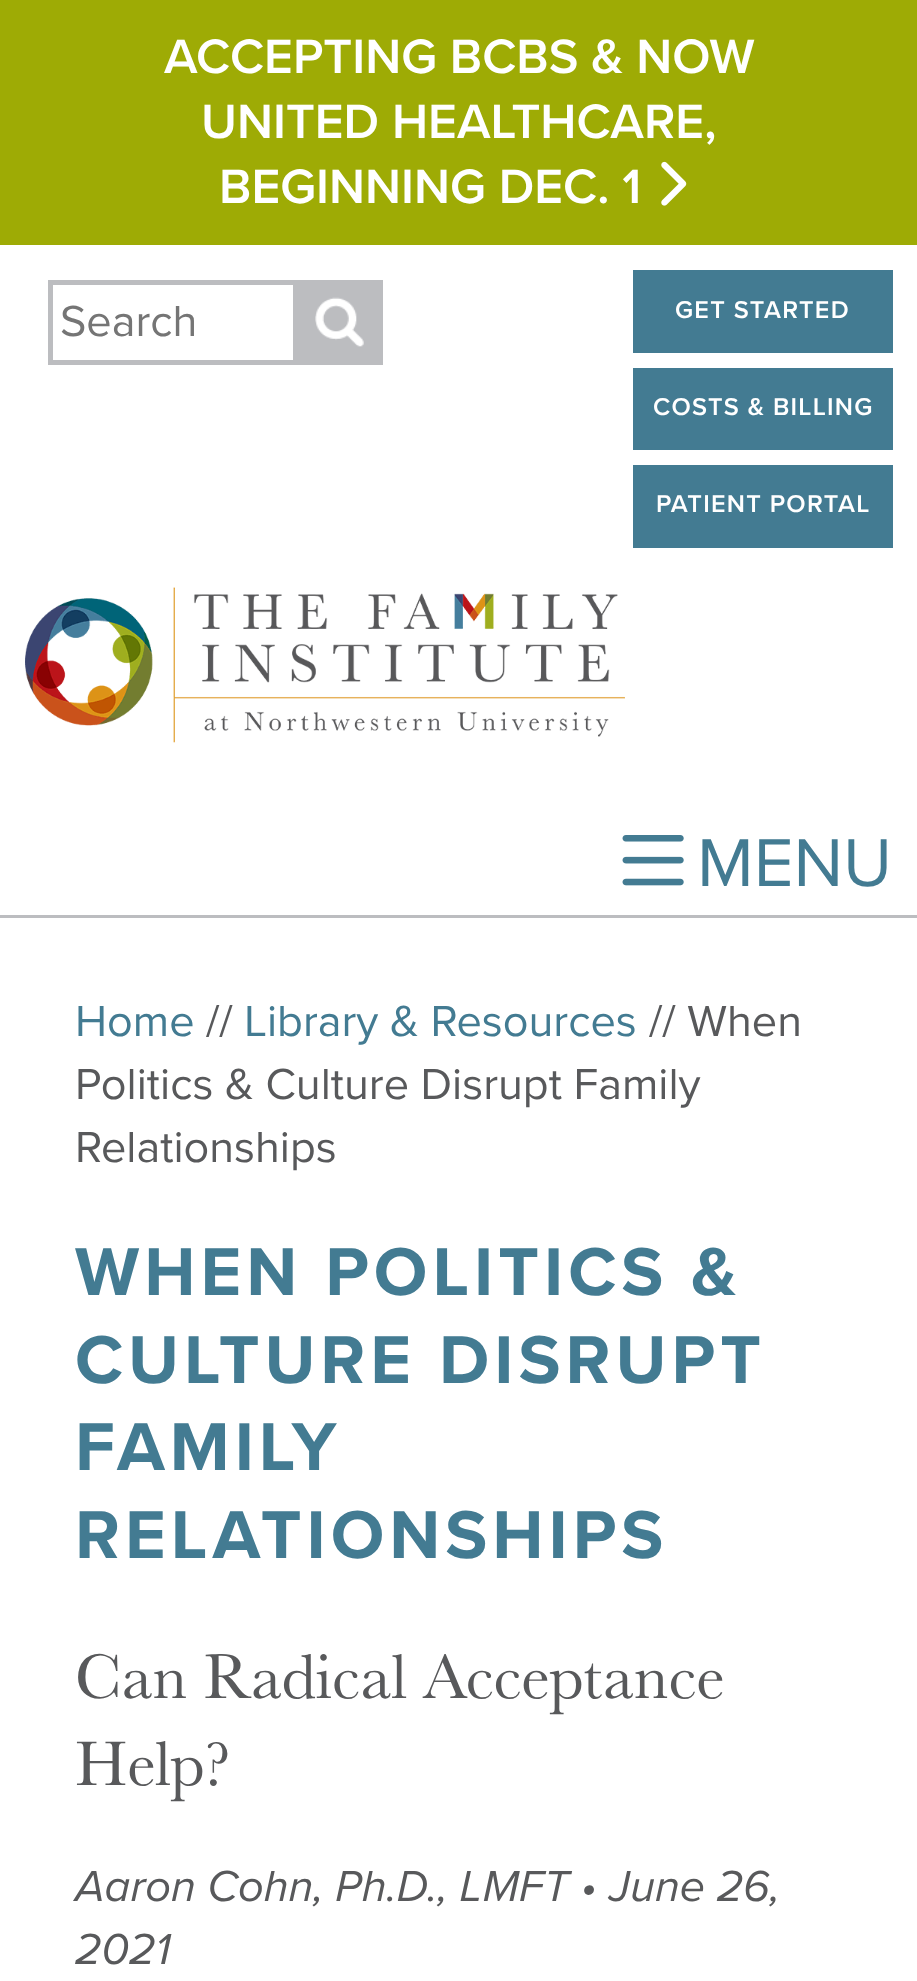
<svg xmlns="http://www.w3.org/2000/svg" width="917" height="1981">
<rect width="100%" height="100%" fill="#fff"/>
<rect width="917" height="245" fill="#9eab05"/>
<text x="164" y="73" style="font-family:Proxima Nova;font-size:50px;font-weight:600;fill:#fff">ACCEPTING BCBS &amp; NOW</text>
<text x="201" y="138" style="font-family:Proxima Nova;font-size:50px;font-weight:600;fill:#fff">UNITED HEALTHCARE,</text>
<text x="219" y="203" style="font-family:Proxima Nova;font-size:50px;font-weight:600;fill:#fff">BEGINNING DEC. 1</text>
<image x="661" y="161" width="26" height="45" href="media/1.png"/>
<rect x="50.5" y="282.5" width="245" height="80" fill="none" stroke="#bcbdc0" stroke-width="5"/>
<text x="60" y="336" style="font-family:Proxima Nova;font-size:45px;fill:#757575">Search</text>
<rect x="298" y="280" width="85" height="85" fill="#bcbdc0"/>
<image x="315" y="297" width="49" height="50" href="media/2.png"/>
<rect x="633" y="270" width="260" height="83" fill="#437b92"/>
<text x="675" y="318" style="font-family:Proxima Nova;font-size:25.25px;font-weight:600;letter-spacing:1.25px;fill:#fff">GET STARTED</text>
<rect x="633" y="368" width="260" height="82" fill="#437b92"/>
<text x="653" y="415" style="font-family:Proxima Nova;font-size:25.25px;font-weight:600;letter-spacing:1.25px;fill:#fff">COSTS &amp; BILLING</text>
<rect x="633" y="465" width="260" height="83" fill="#437b92"/>
<text x="656" y="512" style="font-family:Proxima Nova;font-size:25.25px;font-weight:600;letter-spacing:1.25px;fill:#fff">PATIENT PORTAL</text>
<image x="25" y="587" width="600" height="156" href="media/3.png"/>
<image x="622" y="835" width="62" height="51" href="media/4.png"/>
<text x="697" y="886" style="font-family:Proxima Nova;font-size:70px;fill:#437b92">MENU</text>
<rect y="915" width="917" height="3" fill="#bcbdc0"/>
<text x="75" y="1036" style="font-family:Proxima Nova;font-size:45px;fill:#437b92">Home</text>
<text x="206" y="1036" style="font-family:Proxima Nova;font-size:45px;fill:#58595b">//</text>
<text x="244" y="1036" style="font-family:Proxima Nova;font-size:45px;fill:#437b92">Library &amp; Resources</text>
<text x="649" y="1036" style="font-family:Proxima Nova;font-size:45px;fill:#58595b">// When</text>
<text x="75" y="1099" style="font-family:Proxima Nova;font-size:45px;fill:#58595b">Politics &amp; Culture Disrupt Family</text>
<text x="75" y="1162" style="font-family:Proxima Nova;font-size:45px;fill:#58595b">Relationships</text>
<text x="75" y="1295" style="font-family:Proxima Nova;font-size:70px;font-weight:bold;letter-spacing:5px;fill:#437b92">WHEN POLITICS &amp;</text>
<text x="75" y="1383" style="font-family:Proxima Nova;font-size:70px;font-weight:bold;letter-spacing:5px;fill:#437b92">CULTURE DISRUPT</text>
<text x="75" y="1470" style="font-family:Proxima Nova;font-size:70px;font-weight:bold;letter-spacing:5px;fill:#437b92">FAMILY</text>
<text x="75" y="1558" style="font-family:Proxima Nova;font-size:70px;font-weight:bold;letter-spacing:5px;fill:#437b92">RELATIONSHIPS</text>
<text x="75" y="1698" style="font-family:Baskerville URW;font-size:65px;fill:#58595b">Can Radical Acceptance</text>
<text x="75" y="1785" style="font-family:Baskerville URW;font-size:65px;fill:#58595b">Help?</text>
<text x="75" y="1901" style="font-family:Proxima Nova;font-size:45px;font-style:italic;fill:#58595b">Aaron Cohn, Ph.D., LMFT • June 26,</text>
<text x="75" y="1964" style="font-family:Proxima Nova;font-size:45px;font-style:italic;fill:#58595b">2021</text>
</svg>
